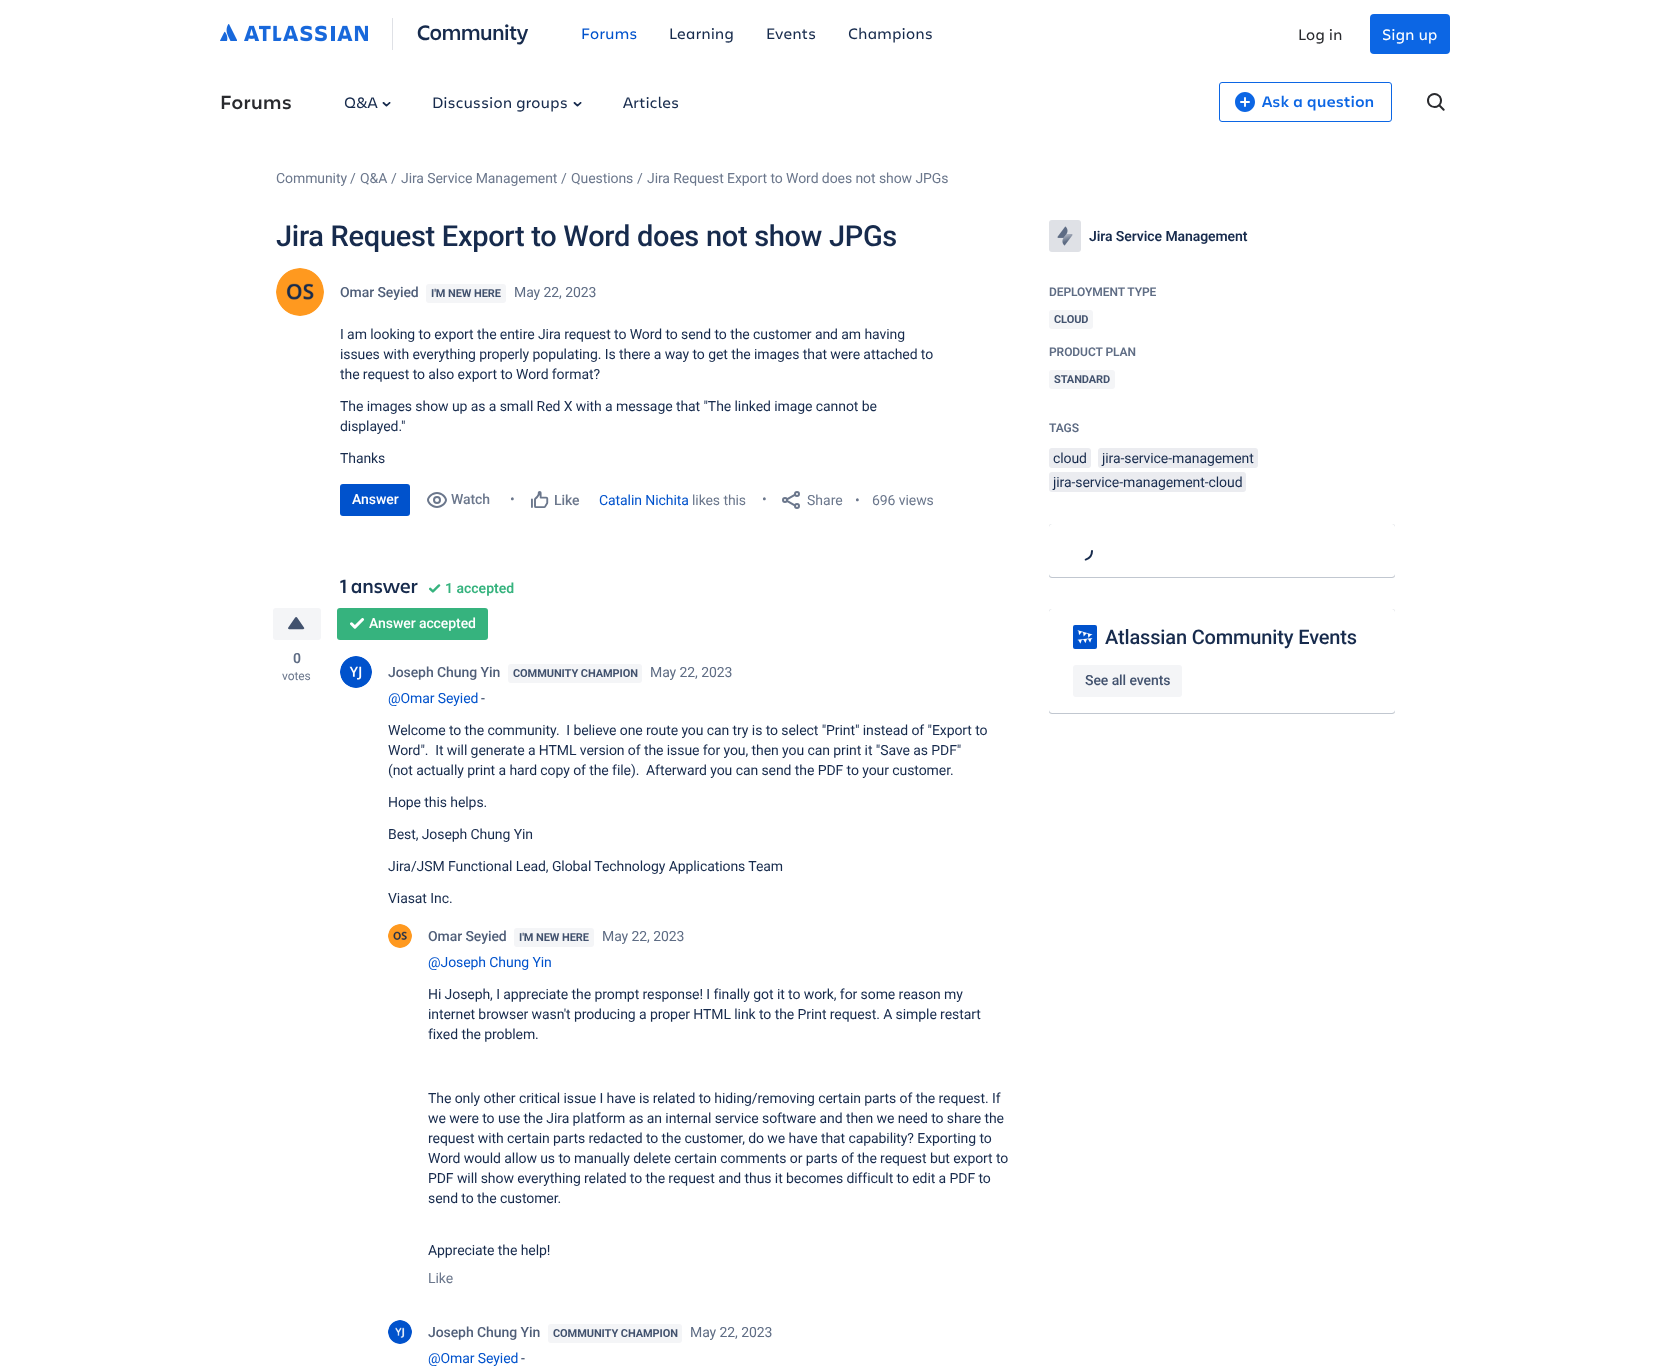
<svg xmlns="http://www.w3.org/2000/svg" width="1671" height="1370">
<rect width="100%" height="100%" fill="#fff"/>
<image x="220" y="24" width="148" height="18" href="media/1.png"/>
<rect x="392" y="18" width="1" height="32" fill="#dfe1e6"/>
<text x="417" y="40" style="font-family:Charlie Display;font-size:22px;font-weight:600;letter-spacing:-0.08px;fill:#172b4d">Community</text>
<text x="581" y="39" style="font-family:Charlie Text;font-size:16px;letter-spacing:-0.08px;fill:#0052cc">Forums</text>
<text x="669" y="39" style="font-family:Charlie Text;font-size:16px;letter-spacing:-0.08px;fill:#172b4d">Learning</text>
<text x="766" y="39" style="font-family:Charlie Text;font-size:16px;letter-spacing:-0.08px;fill:#172b4d">Events</text>
<text x="848" y="39" style="font-family:Charlie Text;font-size:16px;letter-spacing:-0.08px;fill:#172b4d">Champions</text>
<text x="1298" y="40" style="font-family:Charlie Text;font-size:16px;letter-spacing:-0.08px;fill:#292a2e">Log in</text>
<rect x="1370" y="14" width="80" height="40" rx="4" fill="#0c66e4"/>
<text x="1382" y="40" style="font-family:Charlie Text;font-size:16px;letter-spacing:-0.08px;fill:#fff">Sign up</text>
<text x="220" y="109" style="font-family:Charlie Text;font-size:20px;font-weight:600;fill:#292a2e">Forums</text>
<text x="344" y="108" style="font-family:Charlie Text;font-size:16px;letter-spacing:-0.08px;fill:#172b4d">Q&amp;A</text>
<image x="382" y="102" width="9" height="5" href="media/2.png"/>
<text x="432" y="108" style="font-family:Charlie Text;font-size:16px;letter-spacing:-0.08px;fill:#172b4d">Discussion groups</text>
<image x="573" y="102" width="9" height="5" href="media/2.png"/>
<text x="623" y="108" style="font-family:Charlie Text;font-size:16px;letter-spacing:-0.08px;fill:#172b4d">Articles</text>
<rect x="1219.5" y="82.5" width="172" height="39" rx="2.5" fill="none" stroke="#0c66e4"/>
<image x="1235" y="92" width="20" height="20" href="media/3.png"/>
<text x="1262" y="107" style="font-family:Charlie Text;font-size:16px;font-weight:600;fill:#0c66e4">Ask a question</text>
<image x="1427" y="93" width="18" height="18" href="media/4.png"/>
<text x="276" y="183" style="font-family:Roboto;font-size:14px;letter-spacing:-0.08px;fill:#6b778c">Community</text>
<text x="350" y="183" style="font-family:Roboto;font-size:14px;letter-spacing:-0.08px;fill:#6b778c">/</text>
<text x="360" y="183" style="font-family:Roboto;font-size:14px;letter-spacing:-0.08px;fill:#6b778c">Q&amp;A</text>
<text x="391" y="183" style="font-family:Roboto;font-size:14px;letter-spacing:-0.08px;fill:#6b778c">/</text>
<text x="401" y="183" style="font-family:Roboto;font-size:14px;letter-spacing:-0.08px;fill:#6b778c">Jira Service Management</text>
<text x="561" y="183" style="font-family:Roboto;font-size:14px;letter-spacing:-0.08px;fill:#6b778c">/</text>
<text x="571" y="183" style="font-family:Roboto;font-size:14px;letter-spacing:-0.08px;fill:#6b778c">Questions</text>
<text x="637" y="183" style="font-family:Roboto;font-size:14px;letter-spacing:-0.08px;fill:#6b778c">/</text>
<text x="647" y="183" style="font-family:Roboto;font-size:14px;letter-spacing:-0.08px;fill:#6b778c">Jira Request Export to Word does not show JPGs</text>
<text x="276" y="246" style="font-family:Roboto;font-size:29px;font-weight:500;letter-spacing:-0.3px;fill:#172b4d">Jira Request Export to Word does not show JPGs</text>
<image x="276" y="268" width="48" height="48" href="media/5.png"/>
<text x="340" y="297" style="font-family:Roboto;font-size:14px;font-weight:500;letter-spacing:-0.08px;fill:#505f79">Omar Seyied</text>
<rect x="426" y="284" width="80" height="19" rx="3" fill="#f4f5f7"/>
<text x="431" y="297" style="font-family:Roboto;font-size:11px;font-weight:bold;letter-spacing:-0.08px;fill:#42526e">I'M NEW HERE</text>
<text x="514" y="297" style="font-family:Roboto;font-size:14px;letter-spacing:-0.08px;fill:#5e6c84">May 22, 2023</text>
<text x="340" y="339" style="font-family:Roboto;font-size:14px;letter-spacing:-0.08px;fill:#172b4d">I am looking to export the entire Jira request to Word to send to the customer and am having</text>
<text x="340" y="359" style="font-family:Roboto;font-size:14px;letter-spacing:-0.08px;fill:#172b4d">issues with everything properly populating. Is there a way to get the images that were attached to</text>
<text x="340" y="379" style="font-family:Roboto;font-size:14px;letter-spacing:-0.08px;fill:#172b4d">the request to also export to Word format?</text>
<text x="340" y="411" style="font-family:Roboto;font-size:14px;letter-spacing:-0.08px;fill:#172b4d">The images show up as a small Red X with a message that "The linked image cannot be</text>
<text x="340" y="431" style="font-family:Roboto;font-size:14px;letter-spacing:-0.08px;fill:#172b4d">displayed."</text>
<text x="340" y="463" style="font-family:Roboto;font-size:14px;letter-spacing:-0.08px;fill:#172b4d">Thanks</text>
<rect x="340" y="484" width="70" height="32" rx="3" fill="#0052cc"/>
<text x="352" y="504" style="font-family:Roboto;font-size:14px;font-weight:500;letter-spacing:-0.08px;fill:#fff">Answer</text>
<image x="427" y="492" width="20" height="16" href="media/6.png"/>
<text x="451" y="504" style="font-family:Roboto;font-size:14px;font-weight:500;letter-spacing:-0.08px;fill:#6b778c">Watch</text>
<text x="510" y="504" style="font-family:Roboto;font-size:14px;letter-spacing:-0.08px;fill:#6b778c">•</text>
<image x="531" y="491" width="18" height="17" href="media/7.png"/>
<text x="554" y="505" style="font-family:Roboto;font-size:14px;font-weight:500;letter-spacing:-0.08px;fill:#6b778c">Like</text>
<text x="599" y="505" style="font-family:Roboto;font-size:14px;letter-spacing:-0.08px;fill:#0052cc">Catalin Nichita</text>
<text x="692" y="505" style="font-family:Roboto;font-size:14px;letter-spacing:-0.08px;fill:#6b778c">likes this</text>
<text x="762" y="504" style="font-family:Roboto;font-size:14px;letter-spacing:-0.08px;fill:#6b778c">•</text>
<image x="782" y="491" width="18" height="18" href="media/8.png"/>
<text x="807" y="505" style="font-family:Roboto;font-size:14px;fill:#6b778c">Share</text>
<text x="855" y="505" style="font-family:Roboto;font-size:14px;letter-spacing:-0.08px;fill:#6b778c">•</text>
<text x="872" y="505" style="font-family:Roboto;font-size:14px;letter-spacing:-0.08px;fill:#6b778c">696 views</text>
<text x="340" y="593" style="font-family:Charlie Display;font-size:20px;font-weight:600;letter-spacing:0.25px;fill:#172b4d">1 answer</text>
<image x="429" y="584" width="12" height="9" href="media/9.png"/>
<text x="445" y="593" style="font-family:Roboto;font-size:14px;font-weight:600;fill:#36b37e">1 accepted</text>
<rect x="337" y="608" width="151" height="32" rx="3" fill="#36b37e"/>
<image x="350" y="618" width="15" height="11" href="media/10.png"/>
<text x="369" y="628" style="font-family:Roboto;font-size:14px;font-weight:500;letter-spacing:-0.08px;fill:#fff">Answer accepted</text>
<rect x="273" y="608" width="48" height="32" rx="3" fill="#f4f5f7"/>
<image x="288" y="617" width="17" height="13" href="media/11.png"/>
<text x="293" y="663" style="font-family:Roboto;font-size:14px;font-weight:600;letter-spacing:-0.08px;fill:#5e6c84">0</text>
<text x="282" y="680" style="font-family:Roboto;font-size:12px;letter-spacing:-0.08px;fill:#6b778c">votes</text>
<image x="340" y="656" width="32" height="32" href="media/12.png"/>
<text x="388" y="677" style="font-family:Roboto;font-size:14px;font-weight:500;letter-spacing:-0.08px;fill:#505f79">Joseph Chung Yin</text>
<rect x="508" y="664" width="134" height="19" rx="3" fill="#f4f5f7"/>
<text x="513" y="677" style="font-family:Roboto;font-size:11px;font-weight:bold;letter-spacing:-0.08px;fill:#42526e">COMMUNITY CHAMPION</text>
<text x="650" y="677" style="font-family:Roboto;font-size:14px;letter-spacing:-0.08px;fill:#5e6c84">May 22, 2023</text>
<text x="388" y="703" style="font-family:Roboto;font-size:14px;letter-spacing:-0.08px;fill:#0052cc">@Omar Seyied</text>
<text x="481" y="703" style="font-family:Roboto;font-size:14px;letter-spacing:-0.08px;fill:#172b4d">-</text>
<text x="388" y="735" style="font-family:Roboto;font-size:14px;letter-spacing:-0.08px;fill:#172b4d" xml:space="preserve">Welcome to the community.  I believe one route you can try is to select "Print" instead of "Export to</text>
<text x="388" y="755" style="font-family:Roboto;font-size:14px;letter-spacing:-0.08px;fill:#172b4d" xml:space="preserve">Word".  It will generate a HTML version of the issue for you, then you can print it "Save as PDF"</text>
<text x="388" y="775" style="font-family:Roboto;font-size:14px;letter-spacing:-0.08px;fill:#172b4d" xml:space="preserve">(not actually print a hard copy of the file).  Afterward you can send the PDF to your customer.</text>
<text x="388" y="807" style="font-family:Roboto;font-size:14px;letter-spacing:-0.08px;fill:#172b4d">Hope this helps.</text>
<text x="388" y="839" style="font-family:Roboto;font-size:14px;letter-spacing:-0.08px;fill:#172b4d">Best, Joseph Chung Yin</text>
<text x="388" y="871" style="font-family:Roboto;font-size:14px;letter-spacing:-0.08px;fill:#172b4d">Jira/JSM Functional Lead, Global Technology Applications Team</text>
<text x="388" y="903" style="font-family:Roboto;font-size:14px;letter-spacing:-0.08px;fill:#172b4d">Viasat Inc.</text>
<image x="388" y="924" width="24" height="24" href="media/13.png"/>
<text x="428" y="941" style="font-family:Roboto;font-size:14px;font-weight:500;letter-spacing:-0.08px;fill:#505f79">Omar Seyied</text>
<rect x="514" y="928" width="80" height="19" rx="3" fill="#f4f5f7"/>
<text x="519" y="941" style="font-family:Roboto;font-size:11px;font-weight:bold;letter-spacing:-0.08px;fill:#42526e">I'M NEW HERE</text>
<text x="602" y="941" style="font-family:Roboto;font-size:14px;letter-spacing:-0.08px;fill:#5e6c84">May 22, 2023</text>
<text x="428" y="967" style="font-family:Roboto;font-size:14px;letter-spacing:-0.08px;fill:#0052cc">@Joseph Chung Yin</text>
<text x="428" y="999" style="font-family:Roboto;font-size:14px;letter-spacing:-0.08px;fill:#172b4d">Hi Joseph, I appreciate the prompt response! I finally got it to work, for some reason my</text>
<text x="428" y="1019" style="font-family:Roboto;font-size:14px;letter-spacing:-0.08px;fill:#172b4d">internet browser wasn't producing a proper HTML link to the Print request. A simple restart</text>
<text x="428" y="1039" style="font-family:Roboto;font-size:14px;letter-spacing:-0.08px;fill:#172b4d">fixed the problem.</text>
<text x="428" y="1103" style="font-family:Roboto;font-size:14px;letter-spacing:-0.08px;fill:#172b4d">The only other critical issue I have is related to hiding/removing certain parts of the request. If</text>
<text x="428" y="1123" style="font-family:Roboto;font-size:14px;letter-spacing:-0.08px;fill:#172b4d">we were to use the Jira platform as an internal service software and then we need to share the</text>
<text x="428" y="1143" style="font-family:Roboto;font-size:14px;letter-spacing:-0.08px;fill:#172b4d">request with certain parts redacted to the customer, do we have that capability? Exporting to</text>
<text x="428" y="1163" style="font-family:Roboto;font-size:14px;letter-spacing:-0.08px;fill:#172b4d">Word would allow us to manually delete certain comments or parts of the request but export to</text>
<text x="428" y="1183" style="font-family:Roboto;font-size:14px;letter-spacing:-0.08px;fill:#172b4d">PDF will show everything related to the request and thus it becomes difficult to edit a PDF to</text>
<text x="428" y="1203" style="font-family:Roboto;font-size:14px;letter-spacing:-0.08px;fill:#172b4d">send to the customer.</text>
<text x="428" y="1255" style="font-family:Roboto;font-size:14px;letter-spacing:-0.08px;fill:#172b4d">Appreciate the help!</text>
<text x="428" y="1283" style="font-family:Roboto;font-size:14px;letter-spacing:-0.08px;fill:#6b778c">Like</text>
<image x="388" y="1320" width="24" height="24" href="media/14.png"/>
<text x="428" y="1337" style="font-family:Roboto;font-size:14px;font-weight:500;letter-spacing:-0.08px;fill:#505f79">Joseph Chung Yin</text>
<rect x="548" y="1324" width="134" height="19" rx="3" fill="#f4f5f7"/>
<text x="553" y="1337" style="font-family:Roboto;font-size:11px;font-weight:bold;letter-spacing:-0.08px;fill:#42526e">COMMUNITY CHAMPION</text>
<text x="690" y="1337" style="font-family:Roboto;font-size:14px;letter-spacing:-0.08px;fill:#5e6c84">May 22, 2023</text>
<text x="428" y="1363" style="font-family:Roboto;font-size:14px;letter-spacing:-0.08px;fill:#0052cc">@Omar Seyied</text>
<text x="521" y="1363" style="font-family:Roboto;font-size:14px;letter-spacing:-0.08px;fill:#172b4d">-</text>
<rect x="1049" y="220" width="32" height="32" rx="3" fill="#dfe1e6"/>
<image x="1057" y="226" width="16" height="20" href="media/15.png"/>
<text x="1089" y="241" style="font-family:Roboto;font-size:14px;font-weight:600;letter-spacing:-0.08px;fill:#172b4d">Jira Service Management</text>
<text x="1049" y="296" style="font-family:Roboto;font-size:12px;font-weight:600;letter-spacing:-0.08px;fill:#5e6c84">DEPLOYMENT TYPE</text>
<rect x="1049" y="310" width="44" height="19" rx="3" fill="#f4f5f7"/>
<text x="1054" y="323" style="font-family:Roboto;font-size:11px;font-weight:bold;letter-spacing:-0.08px;fill:#42526e">CLOUD</text>
<text x="1049" y="356" style="font-family:Roboto;font-size:12px;font-weight:600;letter-spacing:-0.08px;fill:#5e6c84">PRODUCT PLAN</text>
<rect x="1049" y="370" width="66" height="19" rx="3" fill="#f4f5f7"/>
<text x="1054" y="383" style="font-family:Roboto;font-size:11px;font-weight:bold;letter-spacing:-0.08px;fill:#42526e">STANDARD</text>
<text x="1049" y="432" style="font-family:Roboto;font-size:12px;font-weight:600;letter-spacing:-0.08px;fill:#5e6c84">TAGS</text>
<rect x="1049" y="448" width="42" height="20" rx="3" fill="#ebecf0"/>
<text x="1053" y="463" style="font-family:Roboto;font-size:14px;letter-spacing:-0.08px;fill:#172b4d">cloud</text>
<rect x="1098" y="448" width="160" height="20" rx="3" fill="#ebecf0"/>
<text x="1102" y="463" style="font-family:Roboto;font-size:14px;letter-spacing:-0.08px;fill:#172b4d">jira-service-management</text>
<rect x="1049" y="472" width="197" height="20" rx="3" fill="#ebecf0"/>
<text x="1053" y="487" style="font-family:Roboto;font-size:14px;letter-spacing:-0.08px;fill:#172b4d">jira-service-management-cloud</text>
<rect x="1049" y="524" width="346" height="53" rx="3" fill="#091e424f" filter="blur(0.5px)"/>
<rect x="1049" y="525" width="346" height="53" rx="3" fill="#091e4240" filter="blur(0.5px)"/>
<rect x="1049" y="524" width="346" height="53" rx="3" fill="#fff"/>
<image x="1084" y="550" width="9" height="11" href="media/16.png"/>
<rect x="1049" y="609" width="346" height="104" rx="3" fill="#091e424f" filter="blur(0.5px)"/>
<rect x="1049" y="610" width="346" height="104" rx="3" fill="#091e4240" filter="blur(0.5px)"/>
<rect x="1049" y="609" width="346" height="104" rx="3" fill="#fff"/>
<rect x="1073" y="625" width="24" height="24" rx="2" fill="#0052cc"/>
<image x="1077" y="630" width="16" height="14" href="media/17.png"/>
<text x="1105" y="644" style="font-family:Roboto;font-size:20px;font-weight:500;letter-spacing:-0.15px;fill:#172b4d">Atlassian Community Events</text>
<rect x="1073" y="665" width="109" height="32" rx="3" fill="#f4f5f7"/>
<text x="1085" y="685" style="font-family:Roboto;font-size:14px;font-weight:500;letter-spacing:-0.08px;fill:#42526e">See all events</text>
</svg>
